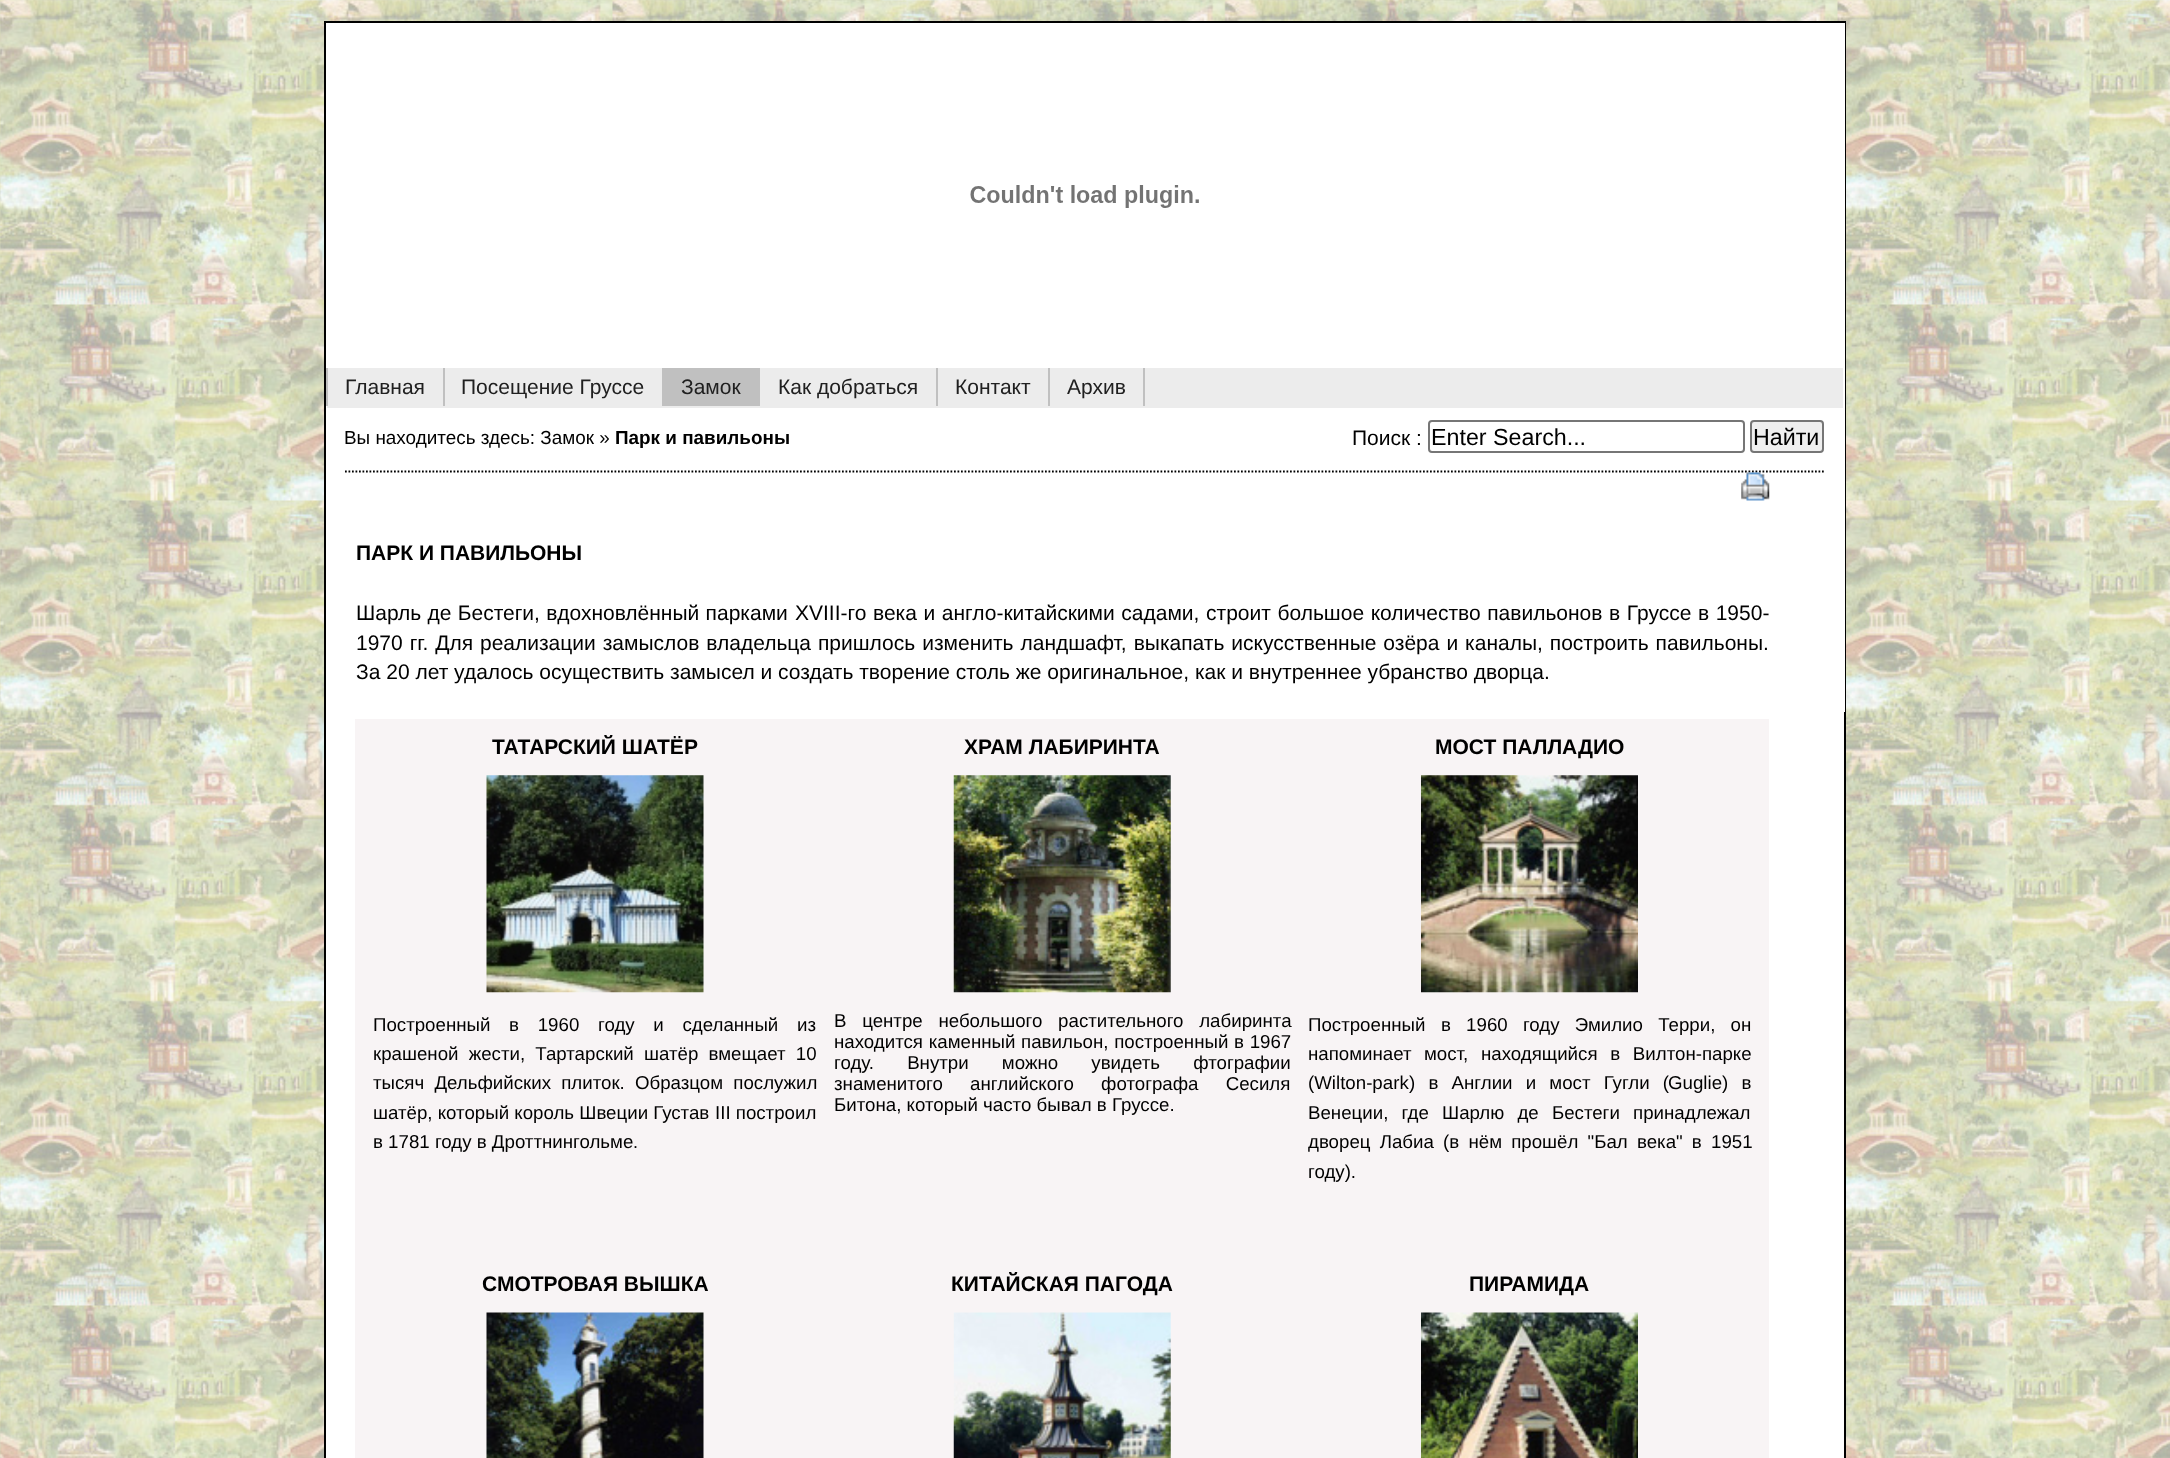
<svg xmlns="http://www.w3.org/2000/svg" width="2170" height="1458">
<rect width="100%" height="100%" fill="#fff"/>
<image x="0" y="0" width="2170" height="1458" href="media/1.png"/>
<rect x="326" y="712" width="1518" height="746" fill="#fff"/>
<rect x="325" y="22" width="1520" height="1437" fill="none" stroke="#000" stroke-width="2"/>
<rect x="326" y="23" width="1519" height="689" fill="#fff"/>
<image x="970" y="185" width="229" height="23" href="media/2.png"/>
<rect x="327" y="368" width="1516" height="40" fill="#ececec"/>
<rect x="326" y="368" width="2" height="38" fill="#c0c0c0"/>
<text x="345" y="394" style="font-family:Liberation Sans;font-size:21px;fill:#202020">Главная</text>
<rect x="443" y="368" width="2" height="38" fill="#c0c0c0"/>
<text x="461" y="394" style="font-family:Liberation Sans;font-size:21px;fill:#202020">Посещение Груссе</text>
<rect x="662" y="368" width="98" height="38" fill="#c0c0c0"/>
<text x="681" y="394" style="font-family:Liberation Sans;font-size:21px;fill:#202020">Замок</text>
<text x="778" y="394" style="font-family:Liberation Sans;font-size:21px;fill:#202020">Как добраться</text>
<rect x="936" y="368" width="2" height="38" fill="#c0c0c0"/>
<text x="955" y="394" style="font-family:Liberation Sans;font-size:21px;fill:#202020">Контакт</text>
<rect x="1143" y="368" width="2" height="38" fill="#c0c0c0"/>
<rect x="1048" y="368" width="2" height="38" fill="#c0c0c0"/>
<text x="1067" y="394" style="font-family:Liberation Sans;font-size:21px;fill:#202020">Архив</text>
<path d="M345 471.5h1480" fill="none" stroke="#000" stroke-width="1.8" stroke-dasharray="1.75 1.75"/>
<text x="344" y="444" style="font-family:Liberation Sans;font-size:18.9px;fill:#000">Вы находитесь здесь: Замок »</text>
<text x="615" y="444" style="font-family:Liberation Sans;font-size:18.9px;font-weight:bold;fill:#000">Парк и павильоны</text>
<text x="1352" y="445" style="font-family:Liberation Sans;font-size:21px;fill:#000">Поиск :</text>
<rect x="1429" y="421" width="315" height="31" rx="3" fill="none" stroke="#767676" stroke-width="2"/>
<text x="1431" y="445" style="font-family:Liberation Sans;font-size:23.25px;fill:#000">Enter Search...</text>
<rect x="1751" y="421" width="72" height="31" rx="3" fill="#efefef" stroke="#767676" stroke-width="2"/>
<text x="1753" y="445" style="font-family:Liberation Sans;font-size:23.25px;fill:#000">Найти</text>
<image x="1741" y="472" width="29" height="29" href="media/3.png"/>
<text x="356" y="560" style="font-family:Liberation Sans;font-size:21px;font-weight:bold;fill:#000">ПАРК И ПАВИЛЬОНЫ</text>
<text x="356" y="620" word-spacing="0.5" style="font-family:Liberation Sans;font-size:21px;fill:#000">Шарль де Бестеги, вдохновлённый парками</text>
<text x="795" y="620" word-spacing="0.75" style="font-family:Liberation Sans;font-size:21px;fill:#000">XVIII-го века и англо-китайскими садами, строит большое количество павильонов в Груссе в 1950-</text>
<text x="356" y="650" word-spacing="1.1" style="font-family:Liberation Sans;font-size:21px;fill:#000">1970 гг. Для реализации замыслов владельца пришлось изменить ландшафт, выкапать искусственные озёра и каналы, построить павильоны.</text>
<text x="356" y="679" style="font-family:Liberation Sans;font-size:21px;fill:#000">За 20 лет удалось осуществить замысел и создать творение столь же оригинальное, как и внутреннее убранство дворца.</text>
<rect x="355" y="719" width="1414" height="739" fill="#f8f4f5"/>
<text x="492" y="754" style="font-family:Liberation Sans;font-size:21px;font-weight:bold;fill:#000">ТАТАРСКИЙ ШАТЁР</text>
<text x="964" y="754" style="font-family:Liberation Sans;font-size:21px;font-weight:bold;fill:#000">ХРАМ ЛАБИРИНТА</text>
<text x="1435" y="754" style="font-family:Liberation Sans;font-size:21px;font-weight:bold;fill:#000">МОСТ ПАЛЛАДИО</text>
<image x="486" y="775" width="218" height="218" href="media/4.png"/>
<image x="953" y="775" width="218" height="218" href="media/5.png"/>
<image x="1421" y="775" width="217" height="218" href="media/6.png"/>
<text x="373" y="1031" word-spacing="13.5" style="font-family:Liberation Sans;font-size:18.7px;fill:#000">Построенный в 1960 году и сделанный из</text>
<text x="373" y="1060" word-spacing="5" style="font-family:Liberation Sans;font-size:18.7px;fill:#000">крашеной жести, Тартарский шатёр вмещает 10</text>
<text x="373" y="1089" word-spacing="5" style="font-family:Liberation Sans;font-size:18.7px;fill:#000">тысяч Дельфийских плиток. Образцом послужил</text>
<text x="373" y="1119" style="font-family:Liberation Sans;font-size:18.7px;fill:#000">шатёр, который король Швеции Густав</text>
<text x="715" y="1119" style="font-family:Liberation Sans;font-size:18.7px;fill:#000">III построил</text>
<text x="373" y="1148" style="font-family:Liberation Sans;font-size:18.7px;fill:#000">в 1781 году в Дроттнингольме</text>
<text x="633" y="1148" style="font-family:Liberation Sans;font-size:18px;fill:#000">.</text>
<text x="834" y="1027" word-spacing="10.5" style="font-family:Liberation Sans;font-size:18.7px;fill:#000">В центре небольшого растительного лабиринта</text>
<text x="834" y="1048" word-spacing="0.5" style="font-family:Liberation Sans;font-size:18.7px;fill:#000">находится каменный павильон, построенный в 1967</text>
<text x="834" y="1069" word-spacing="28" style="font-family:Liberation Sans;font-size:18.7px;fill:#000">году. Внутри можно увидеть фтографии</text>
<text x="834" y="1090" word-spacing="22" style="font-family:Liberation Sans;font-size:18.7px;fill:#000">знаменитого английского фотографа Сесиля</text>
<text x="834" y="1111" style="font-family:Liberation Sans;font-size:18.7px;fill:#000">Битона, который часто бывал в Груссe.</text>
<text x="1308" y="1031" style="font-family:Liberation Sans;font-size:18.7px;fill:#000">Построенный</text>
<text x="1441" y="1031" word-spacing="10" style="font-family:Liberation Sans;font-size:18.7px;fill:#000">в 1960 году Эмилио Терри, он</text>
<text x="1308" y="1060" style="font-family:Liberation Sans;font-size:18.7px;fill:#000">напоминает</text>
<text x="1424" y="1060" word-spacing="7.5" style="font-family:Liberation Sans;font-size:18.7px;fill:#000">мост, находящийся в Вилтон-парке</text>
<text x="1308" y="1089" style="font-family:Liberation Sans;font-size:18.7px;fill:#000">(Wilton-park</text>
<text x="1409" y="1089" word-spacing="8" style="font-family:Liberation Sans;font-size:18.7px;fill:#000">) в Англии и мост Гугли (</text>
<text x="1668" y="1089" style="font-family:Liberation Sans;font-size:18.7px;fill:#000">Guglie</text>
<text x="1722" y="1089" word-spacing="8" style="font-family:Liberation Sans;font-size:18.7px;fill:#000">) в</text>
<text x="1308" y="1119" word-spacing="8" style="font-family:Liberation Sans;font-size:18.7px;fill:#000">Венеции, где Шарлю де Бестеги принадлежал</text>
<text x="1308" y="1148" word-spacing="4" style="font-family:Liberation Sans;font-size:18.7px;fill:#000">дворец Лабиа (в нём прошёл "Бал века" в 1951</text>
<text x="1308" y="1178" style="font-family:Liberation Sans;font-size:18.7px;fill:#000">году).</text>
<text x="482" y="1291" style="font-family:Liberation Sans;font-size:21px;font-weight:bold;fill:#000">СМОТРОВАЯ ВЫШКА</text>
<text x="951" y="1291" style="font-family:Liberation Sans;font-size:21px;font-weight:bold;fill:#000">КИТАЙСКАЯ ПАГОДА</text>
<text x="1469" y="1291" style="font-family:Liberation Sans;font-size:21px;font-weight:bold;fill:#000">ПИРАМИДА</text>
<image x="486" y="1312" width="218" height="146" href="media/7.png"/>
<image x="953" y="1312" width="218" height="146" href="media/8.png"/>
<image x="1421" y="1312" width="217" height="146" href="media/9.png"/>
</svg>
